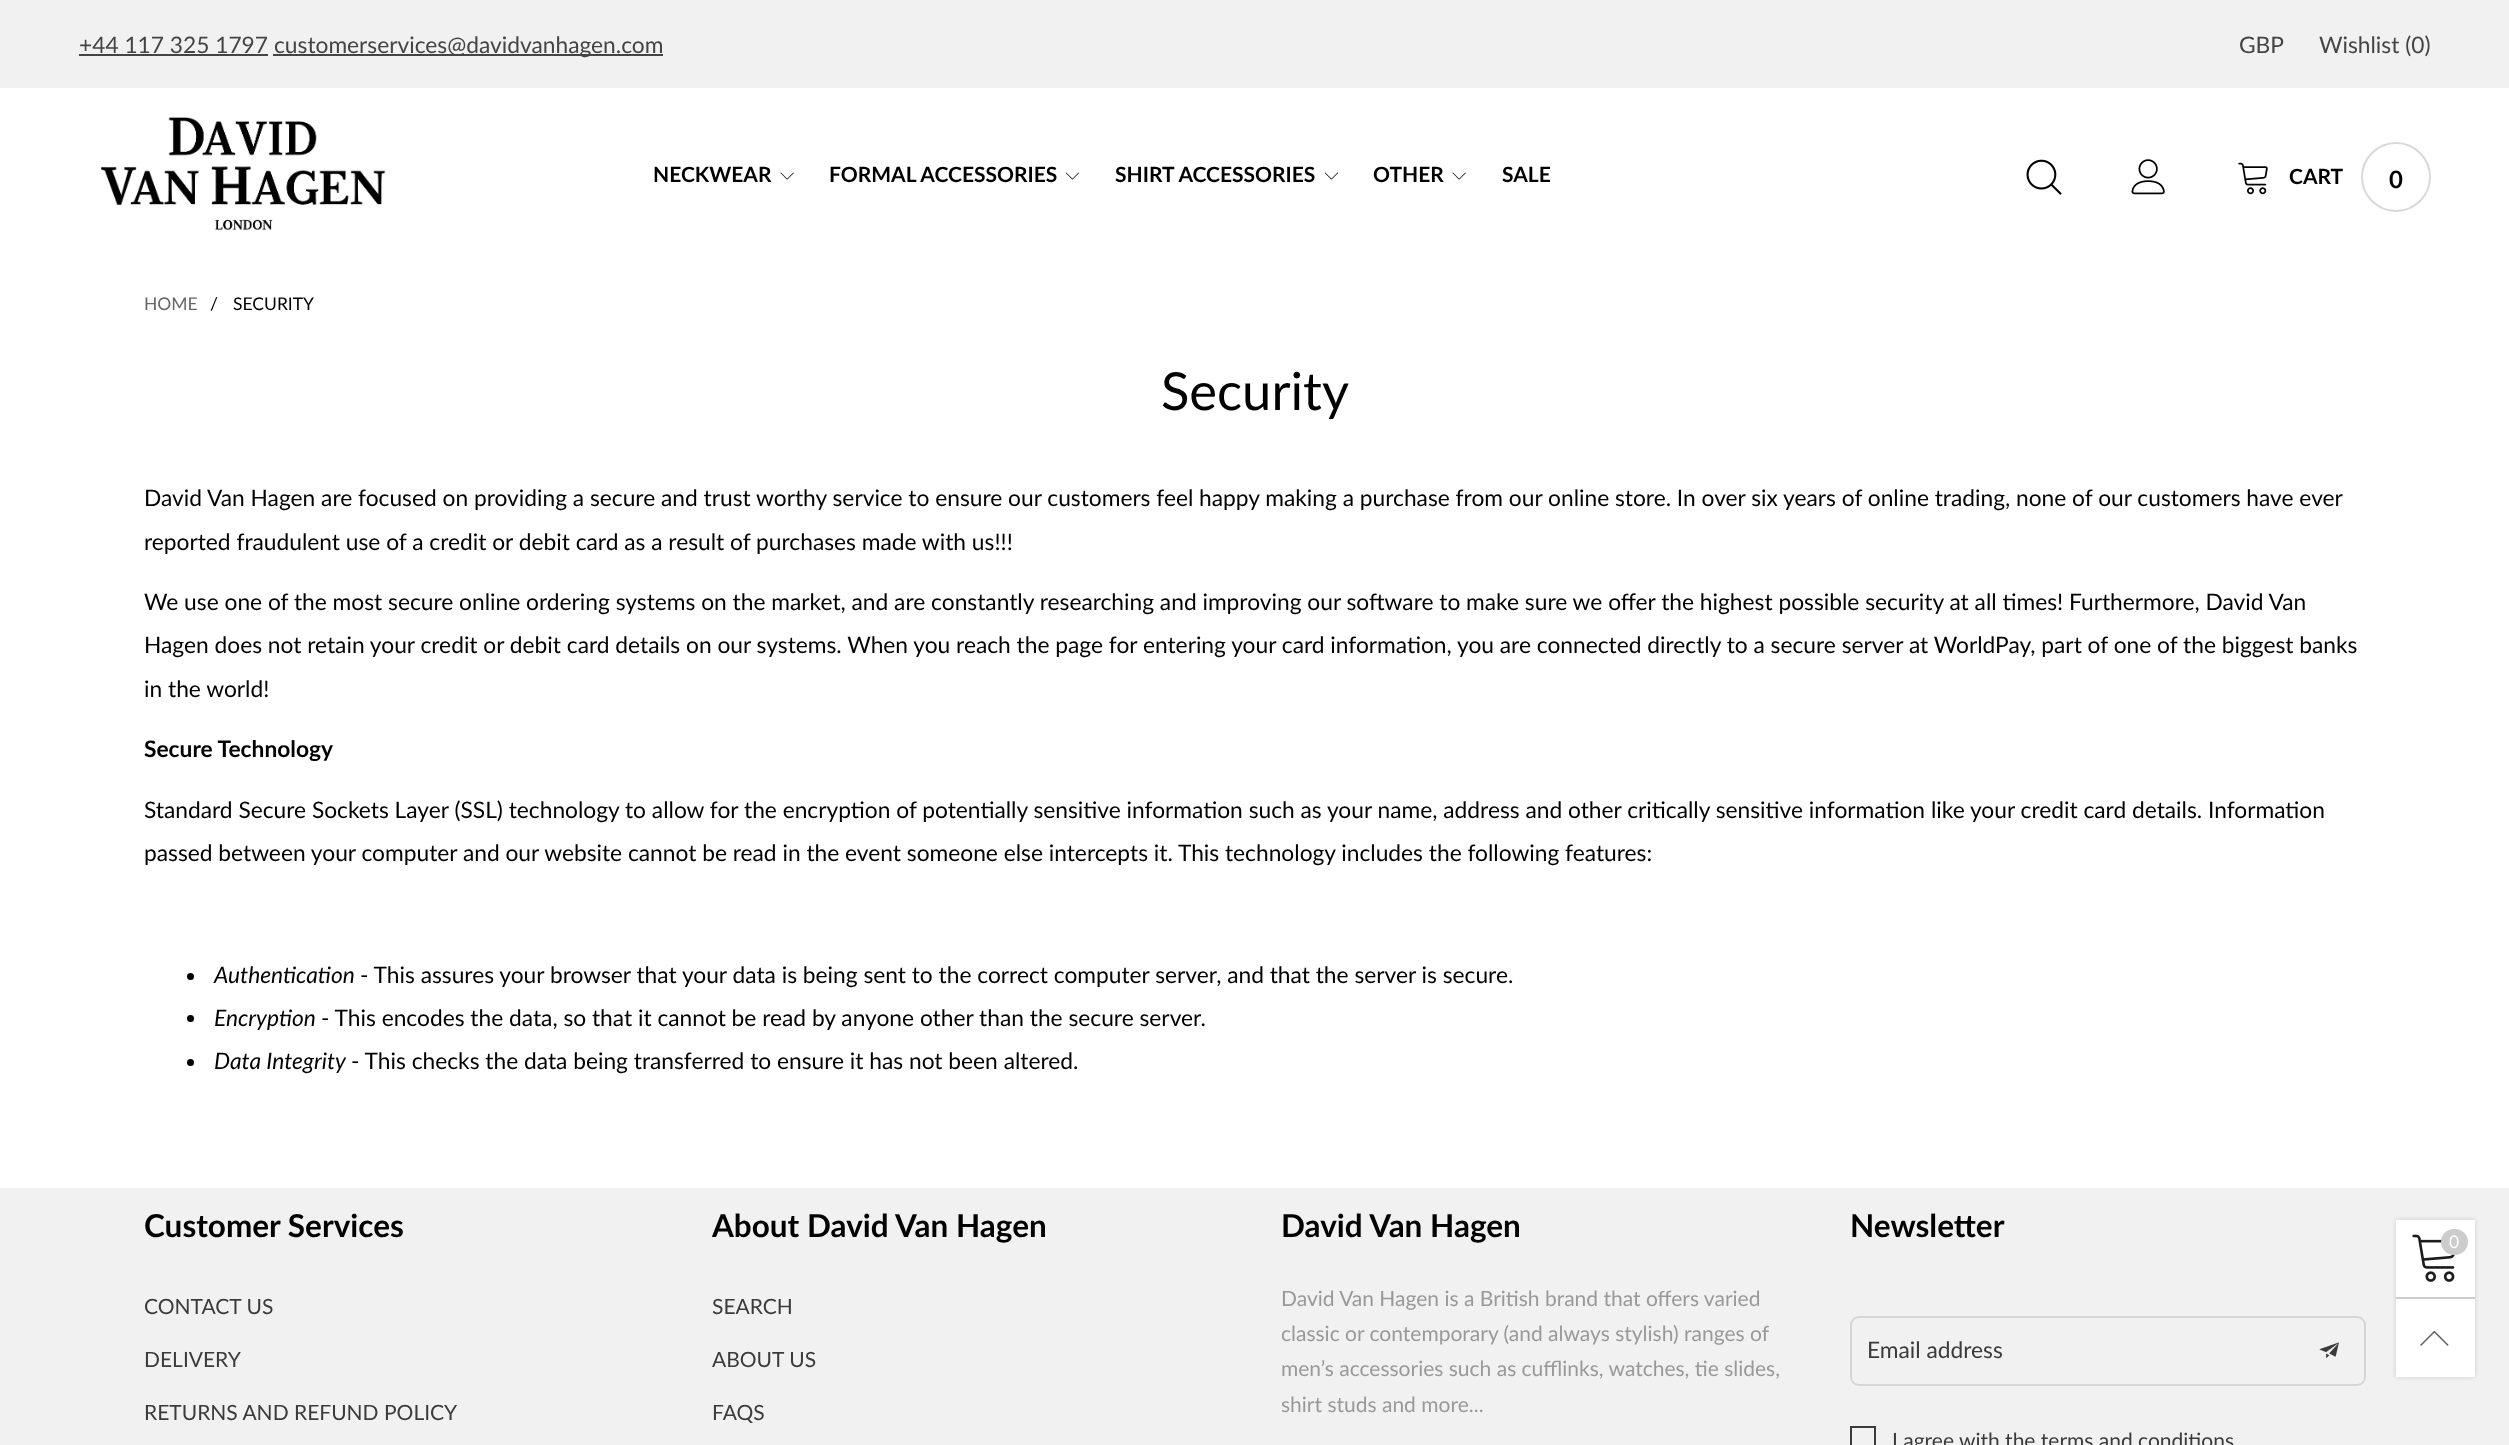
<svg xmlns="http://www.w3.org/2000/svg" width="2509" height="1445">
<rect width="100%" height="100%" fill="#fff"/>
<rect width="2509" height="88" fill="#f1f1f1"/>
<text x="79" y="53" style="font-family:Lato;font-size:22.75px;fill:#444">+44 117 325 1797</text>
<rect x="79" y="54" width="189" height="2" fill="#444"/>
<rect x="273" y="54" width="390" height="2" fill="#444"/>
<text x="274" y="53" style="font-family:Lato;font-size:22.75px;fill:#444">customerservices@davidvanhagen.com</text>
<text x="2239" y="53" style="font-family:Lato;font-size:22.75px;fill:#444">GBP</text>
<text x="2319" y="53" style="font-family:Lato;font-size:22.75px;fill:#444">Wishlist (0)</text>
<image x="101" y="117" width="285" height="114" href="media/1.png"/>
<text x="653" y="182" style="font-family:Lato;font-size:21px;font-weight:bold;fill:#000">NECKWEAR</text>
<image x="780" y="172" width="14" height="8" href="media/2.png"/>
<text x="829" y="182" style="font-family:Lato;font-size:21px;font-weight:bold;fill:#000">FORMAL ACCESSORIES</text>
<image x="1065" y="172" width="14" height="8" href="media/3.png"/>
<text x="1115" y="182" style="font-family:Lato;font-size:21px;font-weight:bold;fill:#000">SHIRT ACCESSORIES</text>
<image x="1324" y="172" width="14" height="8" href="media/3.png"/>
<text x="1373" y="182" style="font-family:Lato;font-size:21px;font-weight:bold;fill:#000">OTHER</text>
<image x="1452" y="172" width="14" height="8" href="media/2.png"/>
<text x="1502" y="182" style="font-family:Lato;font-size:21px;font-weight:bold;fill:#000">SALE</text>
<image x="2026" y="159" width="36" height="36" href="media/4.png"/>
<image x="2131" y="159" width="34" height="36" href="media/5.png"/>
<image x="2238" y="162" width="30" height="33" href="media/6.png"/>
<text x="2289" y="184" style="font-family:Lato;font-size:21px;font-weight:bold;fill:#000">CART</text>
<circle cx="2396" cy="177" r="34" fill="none" stroke="#d9d9d9" stroke-width="2"/>
<text x="2389" y="188" style="font-family:Lato;font-size:24px;font-weight:bold;fill:#000">0</text>
<text x="144" y="310" style="font-family:Lato;font-size:17.5px;fill:#666">HOME</text>
<text x="210" y="310" style="font-family:Lato;font-size:17.5px;fill:#000">/</text>
<text x="233" y="310" style="font-family:Lato;font-size:17.5px;fill:#000">SECURITY</text>
<text x="1161" y="410" style="font-family:Lato;font-size:52.5px;fill:#000">Security</text>
<text x="144" y="506" style="font-family:Lato;font-size:22.75px;fill:#000">David Van Hagen are focused on providing a secure and trust worthy service to ensure our customers feel happy making a purchase from our online store. In over six years of online trading, none of our customers have ever</text>
<text x="144" y="550" style="font-family:Lato;font-size:22.75px;fill:#000">reported fraudulent use of a credit or debit card as a result of purchases made with us!!!</text>
<text x="144" y="610" style="font-family:Lato;font-size:22.75px;fill:#000">We use one of the most secure online ordering systems on the market, and are constantly researching and improving our software to make sure we offer the highest possible security at all times! Furthermore, David Van</text>
<text x="144" y="653" style="font-family:Lato;font-size:22.75px;fill:#000">Hagen does not retain your credit or debit card details on our systems. When you reach the page for entering your card information, you are connected directly to a secure server at WorldPay, part of one of the biggest banks</text>
<text x="144" y="697" style="font-family:Lato;font-size:22.75px;fill:#000">in the world!</text>
<text x="144" y="757" style="font-family:Lato;font-size:22.75px;font-weight:bold;fill:#000">Secure Technology</text>
<text x="144" y="818" style="font-family:Lato;font-size:22.75px;fill:#000">Standard Secure Sockets Layer (SSL) technology to allow for the encryption of potentially sensitive information such as your name, address and other critically sensitive information like your credit card details. Information</text>
<text x="144" y="861" style="font-family:Lato;font-size:22.75px;fill:#000">passed between your computer and our website cannot be read in the event someone else intercepts it. This technology includes the following features:</text>
<circle cx="190.5" cy="976.5" r="3.5" fill="#000"/>
<text x="214" y="983" style="font-family:Lato;font-size:22.75px;font-style:italic;fill:#000">Authentication</text>
<text x="360" y="983" style="font-family:Lato;font-size:22.75px;fill:#000">- This assures your browser that your data is being sent to the correct computer server, and that the server is secure.</text>
<circle cx="190.5" cy="1018.5" r="3.5" fill="#000"/>
<text x="214" y="1026" style="font-family:Lato;font-size:22.75px;font-style:italic;fill:#000">Encryption</text>
<text x="321" y="1026" style="font-family:Lato;font-size:22.75px;fill:#000">- This encodes the data, so that it cannot be read by anyone other than the secure server.</text>
<circle cx="190.5" cy="1062.5" r="3.5" fill="#000"/>
<text x="214" y="1069" style="font-family:Lato;font-size:22.75px;font-style:italic;fill:#000">Data Integrity</text>
<text x="351" y="1069" style="font-family:Lato;font-size:22.75px;fill:#000">- This checks the data being transferred to ensure it has not been altered.</text>
<rect y="1188" width="2509" height="257" fill="#f1f1f1"/>
<text x="144" y="1237" style="font-family:Lato;font-size:31.5px;font-weight:bold;fill:#000">Customer Services</text>
<text x="144" y="1314" style="font-family:Lato;font-size:21px;fill:#3b3b3b">CONTACT US</text>
<text x="144" y="1367" style="font-family:Lato;font-size:21px;fill:#3b3b3b">DELIVERY</text>
<text x="144" y="1420" style="font-family:Lato;font-size:21px;fill:#3b3b3b">RETURNS AND REFUND POLICY</text>
<text x="712" y="1237" style="font-family:Lato;font-size:31.5px;font-weight:bold;fill:#000">About David Van Hagen</text>
<text x="712" y="1314" style="font-family:Lato;font-size:21px;fill:#3b3b3b">SEARCH</text>
<text x="712" y="1367" style="font-family:Lato;font-size:21px;fill:#3b3b3b">ABOUT US</text>
<text x="712" y="1420" style="font-family:Lato;font-size:21px;fill:#3b3b3b">FAQS</text>
<text x="1281" y="1237" style="font-family:Lato;font-size:31.5px;font-weight:bold;fill:#000">David Van Hagen</text>
<text x="1281" y="1306" style="font-family:Lato;font-size:21px;fill:#999">David Van Hagen is a British brand that offers varied</text>
<text x="1281" y="1341" style="font-family:Lato;font-size:21px;fill:#999">classic or contemporary (and always stylish) ranges of</text>
<text x="1281" y="1376" style="font-family:Lato;font-size:21px;fill:#999">men’s accessories such as cufflinks, watches, tie slides,</text>
<text x="1281" y="1412" style="font-family:Lato;font-size:21px;fill:#999">shirt studs and more...</text>
<text x="1850" y="1237" style="font-family:Lato;font-size:31.5px;font-weight:bold;fill:#000">Newsletter</text>
<rect x="1851" y="1317" width="514" height="68" rx="8" fill="none" stroke="#d6d6d6" stroke-width="2"/>
<image x="2319" y="1342" width="20" height="16" href="media/7.png"/>
<text x="1867" y="1358" style="font-family:Lato;font-size:22.75px;fill:#3b3b3b">Email address</text>
<rect x="1851" y="1427" width="24" height="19" fill="none" stroke="#3b3b3b" stroke-width="2"/>
<text x="1892" y="1448" style="font-family:Lato;font-size:21px;fill:#3b3b3b">I agree with the terms and conditions</text>
<rect x="2396" y="1220" width="79" height="157" fill="#00000026" filter="blur(2.5px)"/>
<rect x="2396" y="1220" width="79" height="157" fill="#fff"/>
<rect x="2396" y="1297" width="79" height="2" fill="#ccc"/>
<image x="2412" y="1234" width="43" height="48" href="media/8.png"/>
<rect x="2441" y="1229" width="27" height="26" rx="13" fill="#ccc"/>
<text x="2449" y="1248" style="font-family:Lato;font-size:17.5px;fill:#fff">0</text>
<image x="2420" y="1331" width="29" height="15" href="media/9.png"/>
</svg>
